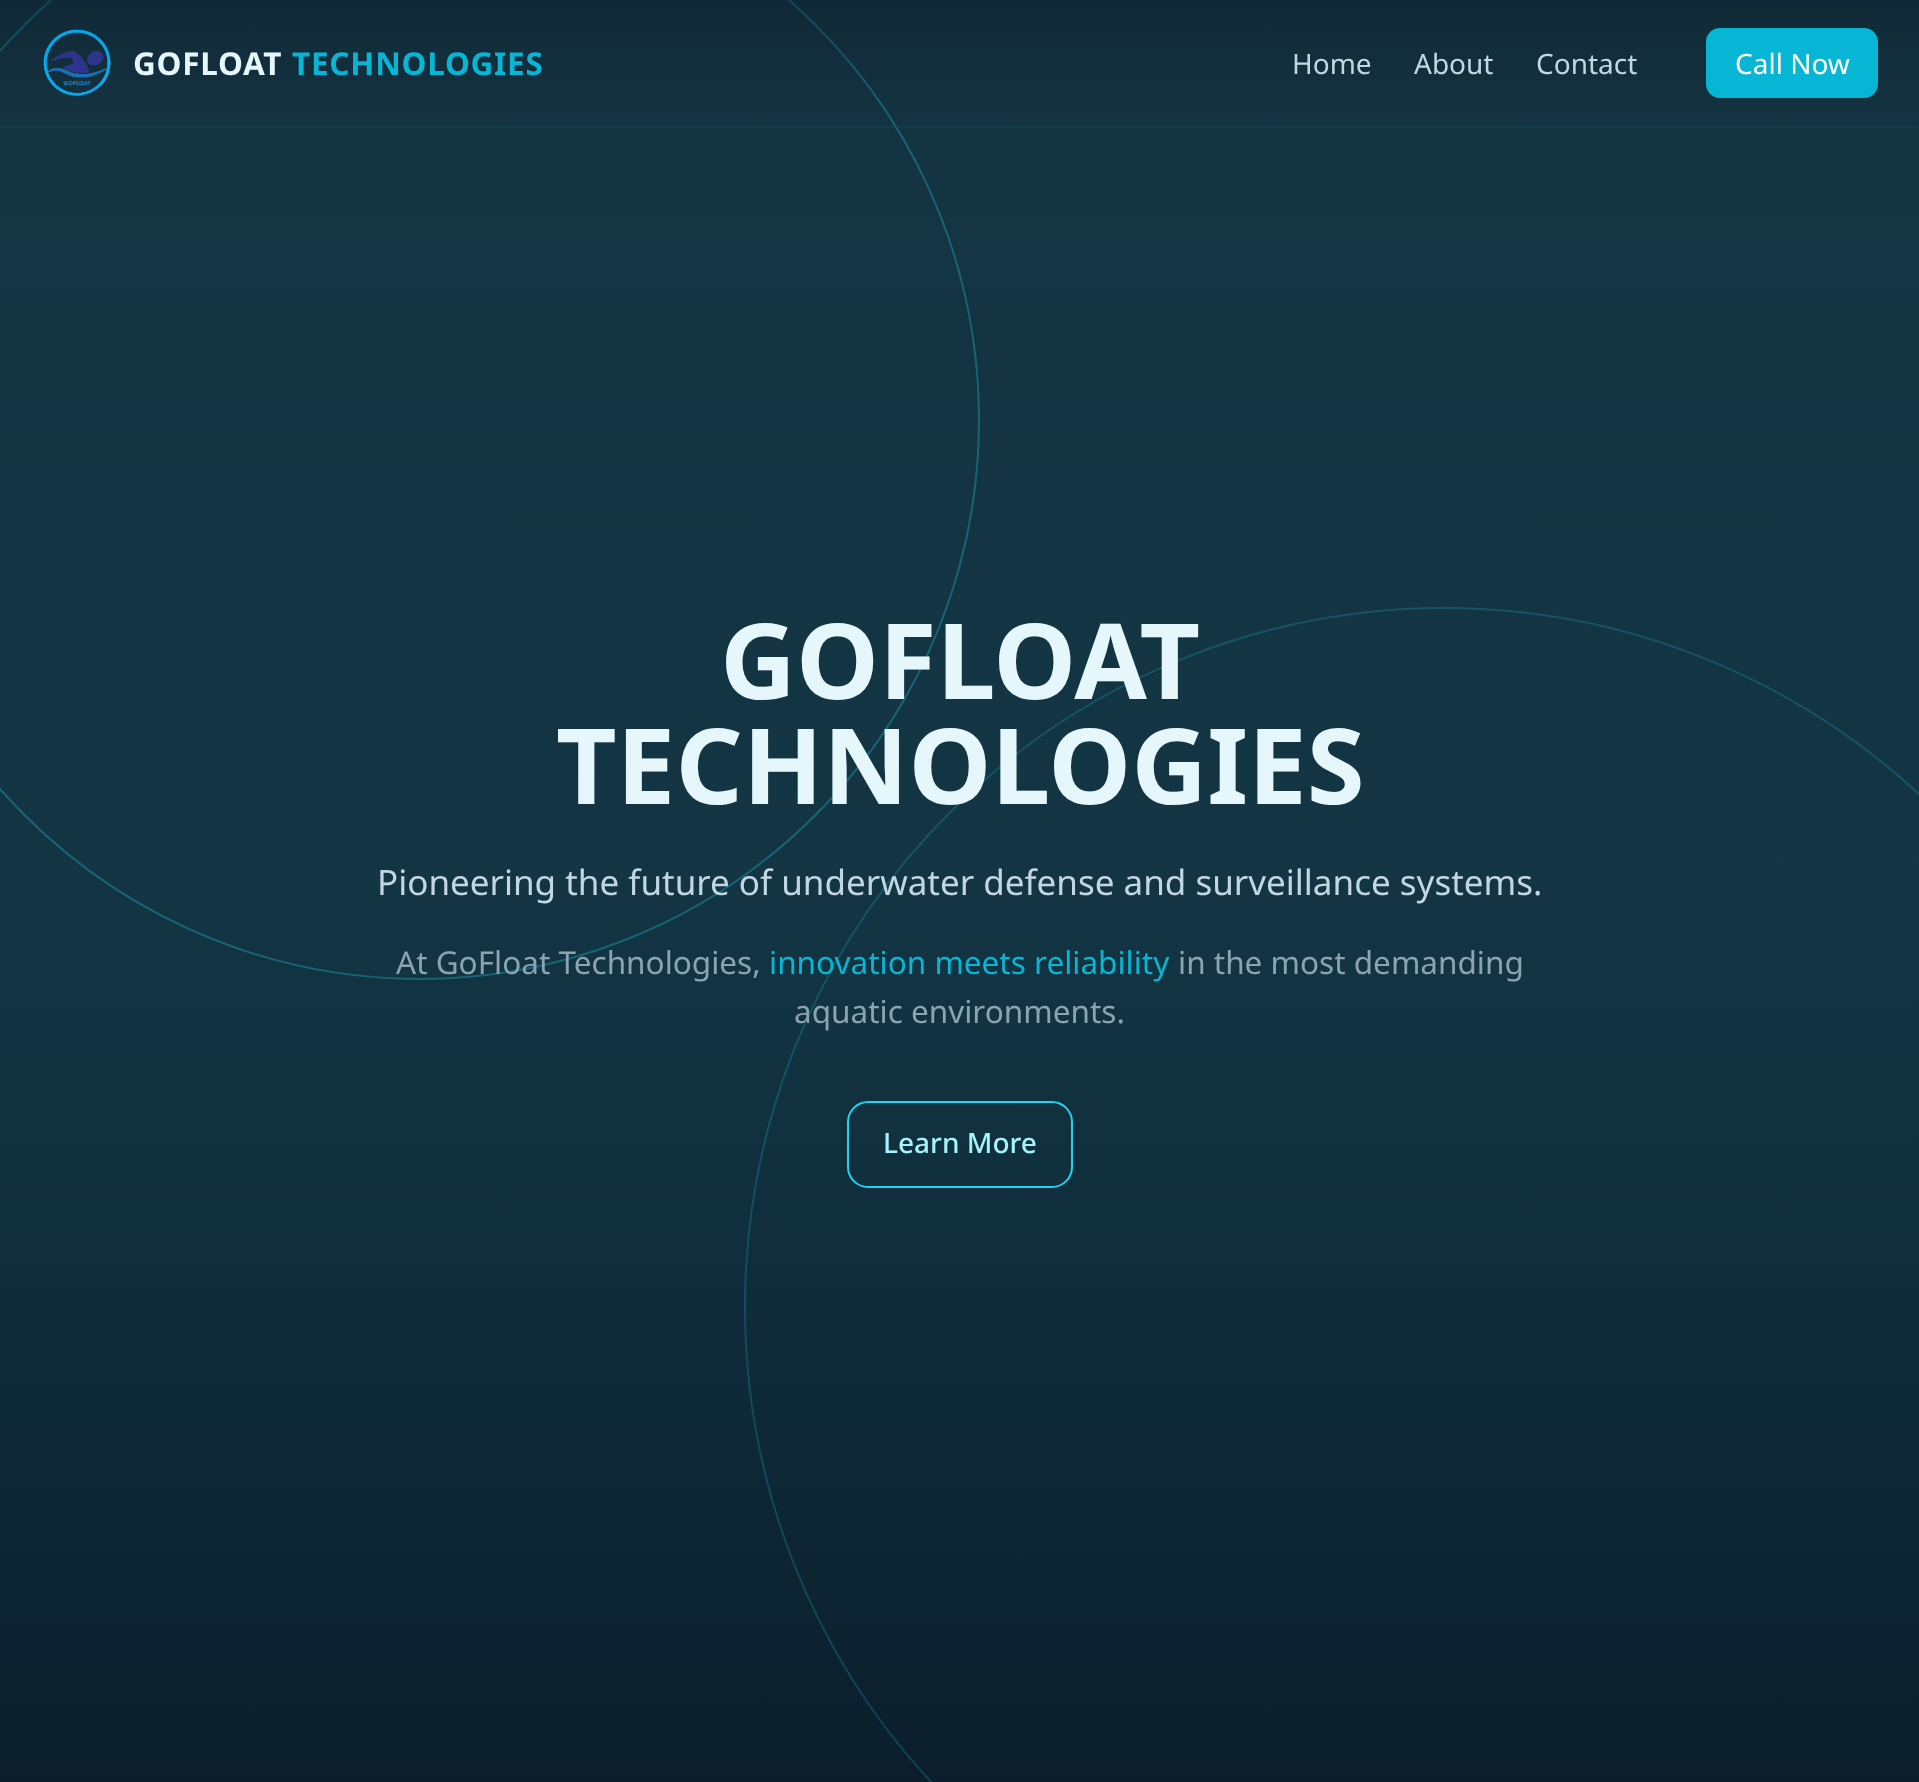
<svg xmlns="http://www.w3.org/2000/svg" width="1919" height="1782">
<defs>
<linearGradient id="g1" gradientUnits="userSpaceOnUse" x1="960" y1="0" x2="960" y2="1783"><stop offset="0" stop-color="#14313f"/><stop offset="1" stop-color="#184d5d"/></linearGradient>
<linearGradient id="g2" gradientUnits="userSpaceOnUse" x1="960" y1="0" x2="960" y2="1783"><stop offset="0" stop-color="#0b1d2a" stop-opacity="0"/><stop offset="0.5" stop-color="#0b1d2a" stop-opacity="0.3"/><stop offset="1" stop-color="#0b1d2a"/></linearGradient>
<linearGradient id="g3" gradientUnits="userSpaceOnUse" x1="960" y1="0" x2="960" y2="126"><stop offset="0" stop-color="#0b1d2a" stop-opacity="0.4"/><stop offset="1" stop-color="#0b1d2a" stop-opacity="0"/></linearGradient>
<linearGradient id="g4" gradientUnits="userSpaceOnUse" x1="960" y1="126" x2="960" y2="252"><stop offset="0" stop-color="#0b1d2a" stop-opacity="0.4"/><stop offset="1" stop-color="#0b1d2a" stop-opacity="0"/></linearGradient>
</defs>
<rect width="100%" height="100%" fill="#fff"/>
<rect width="1919" height="1776" fill="url(#g1)"/>
<rect y="286" width="1919" height="1496" fill="url(#g2)"/>
<circle cx="420" cy="420" r="559" fill="none" stroke="#22d3ee4d" stroke-width="2"/>
<rect width="1919" height="117" fill="url(#g3)"/>
<rect y="126" width="1919" height="2" fill="url(#g4)"/>
<rect y="126" width="1919" height="2" fill="#22d3ee1a"/>
<image x="43" y="29" width="68" height="67" href="media/1.png"/>
<text x="133" y="75" style="font-family:Noto Sans;font-size:31.5px;font-weight:bold;letter-spacing:0.75px;fill:#e6f7fb">GOFLOAT</text>
<text x="292" y="75" style="font-family:Noto Sans;font-size:31.5px;font-weight:bold;letter-spacing:0.75px;fill:#06b6d4">TECHNOLOGIES</text>
<text x="1292" y="74" style="font-family:Noto Sans;font-size:28px;fill:#c2d7e1">Home</text>
<text x="1414" y="74" style="font-family:Noto Sans;font-size:28px;fill:#c2d7e1">About</text>
<text x="1536" y="74" style="font-family:Noto Sans;font-size:28px;fill:#c2d7e1">Contact</text>
<rect x="1706" y="28" width="172" height="70" rx="14" fill="#06b6d4"/>
<text x="1735" y="74" style="font-family:Noto Sans;font-size:28px;fill:#fff">Call Now</text>
<circle cx="1444" cy="1307" r="699" fill="none" stroke="#22d3ee33" stroke-width="2"/>
<text x="720" y="699" style="font-family:Noto Sans;font-size:105px;font-weight:bold;fill:#e6f7fb">GOFLOAT</text>
<text x="556" y="804" style="font-family:Noto Sans;font-size:105px;font-weight:bold;fill:#e6f7fb">TECHNOLOGIES</text>
<text x="377" y="895" style="font-family:Noto Sans;font-size:35px;fill:#c2d7e1">Pioneering the future of underwater defense and surveillance systems.</text>
<text x="396" y="974" style="font-family:Noto Sans;font-size:31.5px;fill:#8ca3b0">At GoFloat Technologies,</text>
<text x="769" y="974" style="font-family:Noto Sans;font-size:31.5px;fill:#06b6d4">innovation meets reliability</text>
<text x="1178" y="974" style="font-family:Noto Sans;font-size:31.5px;fill:#8ca3b0">in the most demanding</text>
<text x="794" y="1023" style="font-family:Noto Sans;font-size:31.5px;fill:#8ca3b0">aquatic environments.</text>
<rect x="848" y="1102" width="224" height="85" rx="20" fill="none" stroke="#22d3ee" stroke-width="2"/>
<text x="883" y="1153" style="font-family:Noto Sans;font-size:28px;font-weight:500;fill:#a5f3fc">Learn More</text>
</svg>
